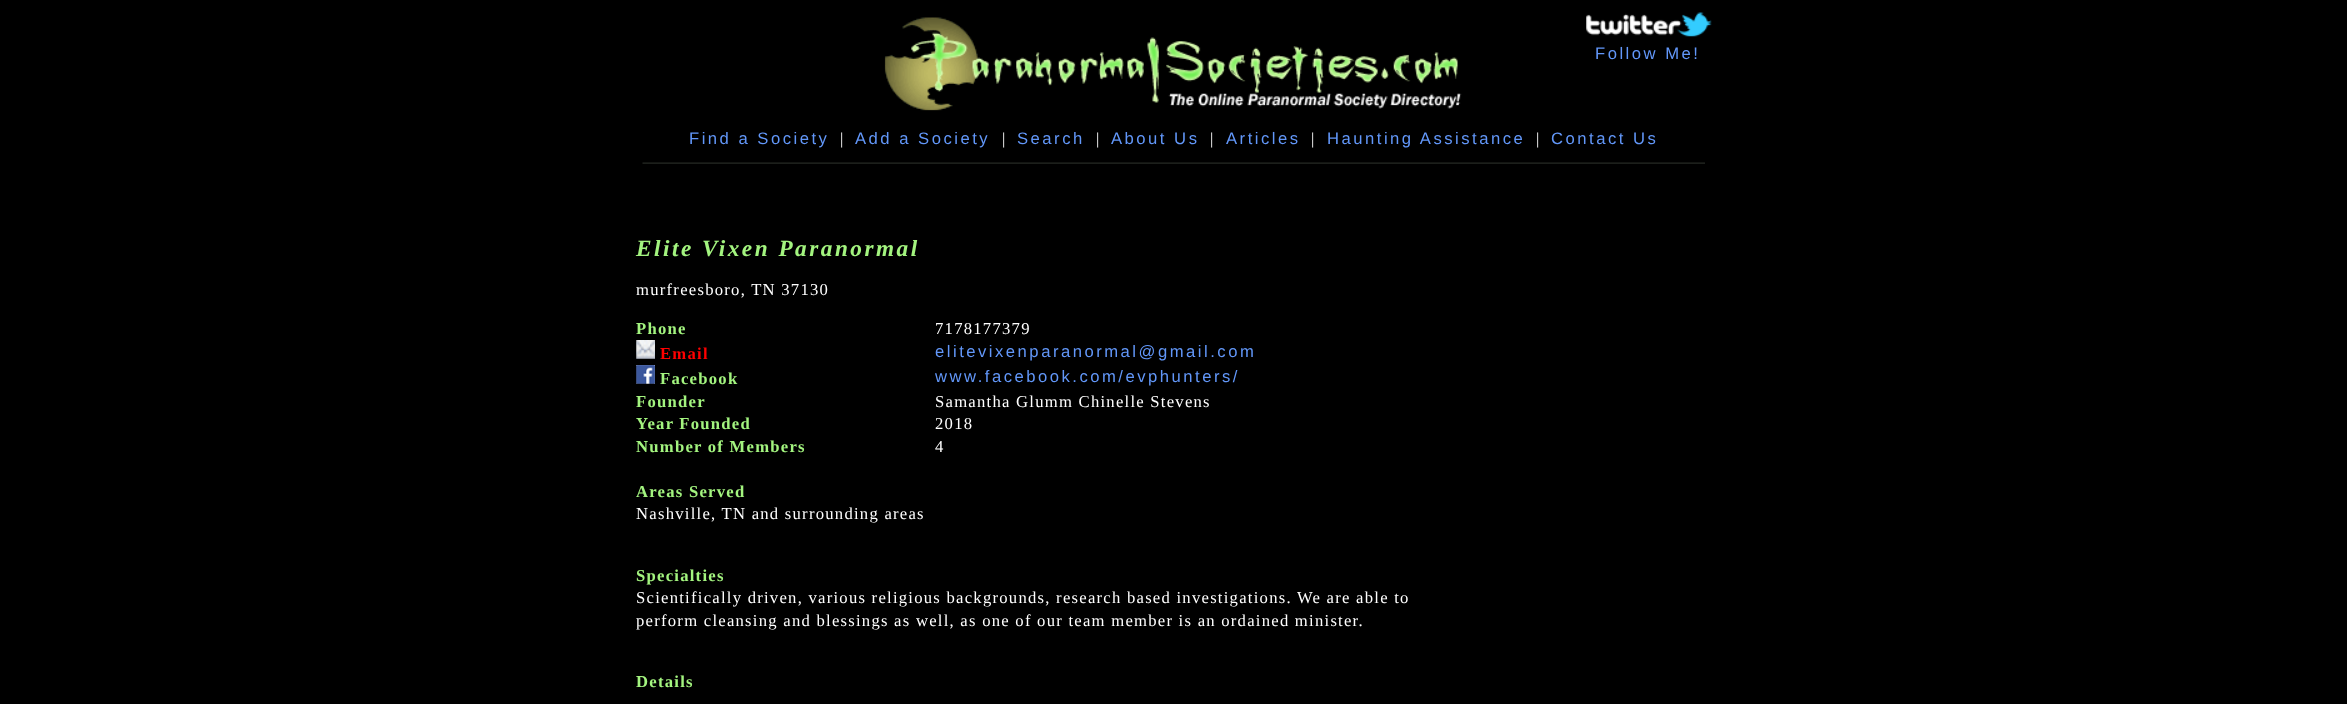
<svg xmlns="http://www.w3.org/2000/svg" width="2347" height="704">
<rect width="100%" height="100%" fill="#000"/>
<image x="884" y="17" width="578" height="94" href="media/1.png"/>
<image x="1586" y="12" width="126" height="25" href="media/2.png"/>
<text x="1595" y="59" style="font-family:Liberation Sans;font-size:16.65px;letter-spacing:2.5px;fill:#6297f9">Follow Me!</text>
<text x="689" y="144" style="font-family:Liberation Sans;font-size:16.65px;letter-spacing:2.5px;fill:#6297f9">Find a Society</text>
<text x="840" y="144" style="font-family:Liberation Serif;font-size:16.65px;letter-spacing:1.25px;fill:#fff">|</text>
<text x="855" y="144" style="font-family:Liberation Sans;font-size:16.65px;letter-spacing:2.5px;fill:#6297f9">Add a Society</text>
<text x="1002" y="144" style="font-family:Liberation Serif;font-size:16.65px;letter-spacing:1.25px;fill:#fff">|</text>
<text x="1017" y="144" style="font-family:Liberation Sans;font-size:16.65px;letter-spacing:2.5px;fill:#6297f9">Search</text>
<text x="1096" y="144" style="font-family:Liberation Serif;font-size:16.65px;letter-spacing:1.25px;fill:#fff">|</text>
<text x="1111" y="144" style="font-family:Liberation Sans;font-size:16.65px;letter-spacing:2.5px;fill:#6297f9">About Us</text>
<text x="1210" y="144" style="font-family:Liberation Serif;font-size:16.65px;letter-spacing:1.25px;fill:#fff">|</text>
<text x="1226" y="144" style="font-family:Liberation Sans;font-size:16.65px;letter-spacing:2.5px;fill:#6297f9">Articles</text>
<text x="1311" y="144" style="font-family:Liberation Serif;font-size:16.65px;letter-spacing:1.25px;fill:#fff">|</text>
<text x="1327" y="144" style="font-family:Liberation Sans;font-size:16.65px;letter-spacing:2.5px;fill:#6297f9">Haunting Assistance</text>
<text x="1536" y="144" style="font-family:Liberation Serif;font-size:16.65px;letter-spacing:1.25px;fill:#fff">|</text>
<text x="1551" y="144" style="font-family:Liberation Sans;font-size:16.65px;letter-spacing:2.5px;fill:#6297f9">Contact Us</text>
<image x="642" y="162" width="1063" height="2" href="media/3.png"/>
<text x="636" y="256" style="font-family:Liberation Serif;font-size:23.25px;font-weight:bold;font-style:italic;letter-spacing:2.5px;fill:#a3f47f">Elite Vixen Paranormal</text>
<text x="636" y="295" style="font-family:Liberation Serif;font-size:16.65px;letter-spacing:1.25px;fill:#fff">murfreesboro, TN 37130</text>
<text x="636" y="334" style="font-family:Liberation Serif;font-size:16.65px;font-weight:bold;letter-spacing:1.25px;fill:#a3f47f">Phone</text>
<text x="935" y="334" style="font-family:Liberation Serif;font-size:16.65px;letter-spacing:1.25px;fill:#fff">7178177379</text>
<image x="636" y="340" width="19" height="19" href="media/4.png"/>
<text x="660" y="359" style="font-family:Liberation Serif;font-size:16.65px;font-weight:bold;letter-spacing:1.25px;fill:#f00">Email</text>
<text x="935" y="357" style="font-family:Liberation Sans;font-size:16.65px;letter-spacing:2.5px;fill:#6297f9">elitevixenparanormal@gmail.com</text>
<image x="636" y="365" width="19" height="19" href="media/5.png"/>
<text x="660" y="384" style="font-family:Liberation Serif;font-size:16.65px;font-weight:bold;letter-spacing:1.25px;fill:#a3f47f">Facebook</text>
<text x="935" y="382" style="font-family:Liberation Sans;font-size:16.65px;letter-spacing:2.5px;fill:#6297f9">www.facebook.com/evphunters/</text>
<text x="636" y="407" style="font-family:Liberation Serif;font-size:16.65px;font-weight:bold;letter-spacing:1.25px;fill:#a3f47f">Founder</text>
<text x="935" y="407" style="font-family:Liberation Serif;font-size:16.65px;letter-spacing:1.25px;fill:#fff">Samantha Glumm Chinelle Stevens</text>
<text x="636" y="429" style="font-family:Liberation Serif;font-size:16.65px;font-weight:bold;letter-spacing:1.25px;fill:#a3f47f">Year Founded</text>
<text x="935" y="429" style="font-family:Liberation Serif;font-size:16.65px;letter-spacing:1.25px;fill:#fff">2018</text>
<text x="636" y="452" style="font-family:Liberation Serif;font-size:16.65px;font-weight:bold;letter-spacing:1.25px;fill:#a3f47f">Number of Members</text>
<text x="935" y="452" style="font-family:Liberation Serif;font-size:16.65px;letter-spacing:1.25px;fill:#fff">4</text>
<text x="636" y="497" style="font-family:Liberation Serif;font-size:16.65px;font-weight:bold;letter-spacing:1.25px;fill:#a3f47f">Areas Served</text>
<text x="636" y="519" style="font-family:Liberation Serif;font-size:16.65px;letter-spacing:1.25px;fill:#fff">Nashville, TN and surrounding areas</text>
<text x="636" y="581" style="font-family:Liberation Serif;font-size:16.65px;font-weight:bold;letter-spacing:1.25px;fill:#a3f47f">Specialties</text>
<text x="636" y="603" style="font-family:Liberation Serif;font-size:16.65px;letter-spacing:1.25px;fill:#fff">Scientifically driven, various religious backgrounds, research based investigations. We are able to</text>
<text x="636" y="626" style="font-family:Liberation Serif;font-size:16.65px;letter-spacing:1.25px;fill:#fff">perform cleansing and blessings as well, as one of our team member is an ordained minister.</text>
<text x="636" y="687" style="font-family:Liberation Serif;font-size:16.65px;font-weight:bold;letter-spacing:1.25px;fill:#a3f47f">Details</text>
</svg>
